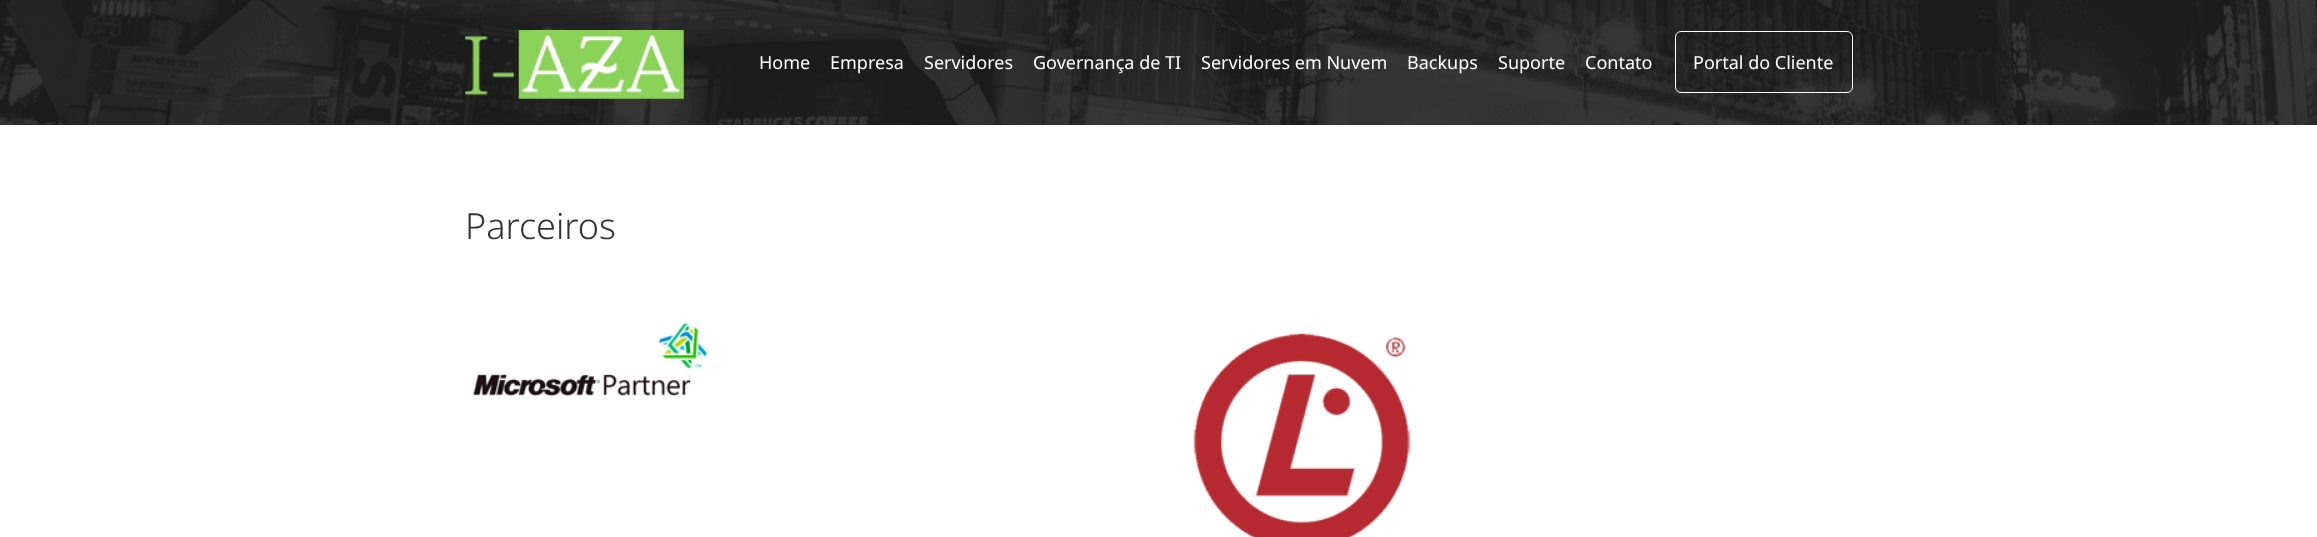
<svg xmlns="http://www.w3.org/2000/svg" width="2317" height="537">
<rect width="100%" height="100%" fill="#fff"/>
<image x="0" y="0" width="2317" height="125" href="media/1.png"/>
<image x="465" y="30" width="219" height="69" href="media/2.png"/>
<text x="759" y="69" style="font-family:Noto Sans;font-size:18px;fill:#fff">Home</text>
<text x="830" y="69" style="font-family:Noto Sans;font-size:18px;fill:#fff">Empresa</text>
<text x="924" y="69" style="font-family:Noto Sans;font-size:18px;fill:#fff">Servidores</text>
<text x="1033" y="69" style="font-family:Noto Sans;font-size:18px;fill:#fff">Governança de TI</text>
<text x="1201" y="69" style="font-family:Noto Sans;font-size:18px;fill:#fff">Servidores em Nuvem</text>
<text x="1407" y="69" style="font-family:Noto Sans;font-size:18px;fill:#fff">Backups</text>
<text x="1498" y="69" style="font-family:Noto Sans;font-size:18px;fill:#fff">Suporte</text>
<text x="1585" y="69" style="font-family:Noto Sans;font-size:18px;fill:#fff">Contato</text>
<rect x="1675.5" y="31.5" width="177" height="61" rx="5.5" fill="none" stroke="#fff"/>
<text x="1693" y="69" style="font-family:Noto Sans;font-size:18px;fill:#fff">Portal do Cliente</text>
<text x="465" y="239" style="font-family:Noto Sans;font-size:36px;font-weight:300;fill:#333">Parceiros</text>
<image x="472" y="322" width="236" height="75" href="media/3.png"/>
<image x="1193" y="333" width="218" height="204" href="media/4.png"/>
</svg>
